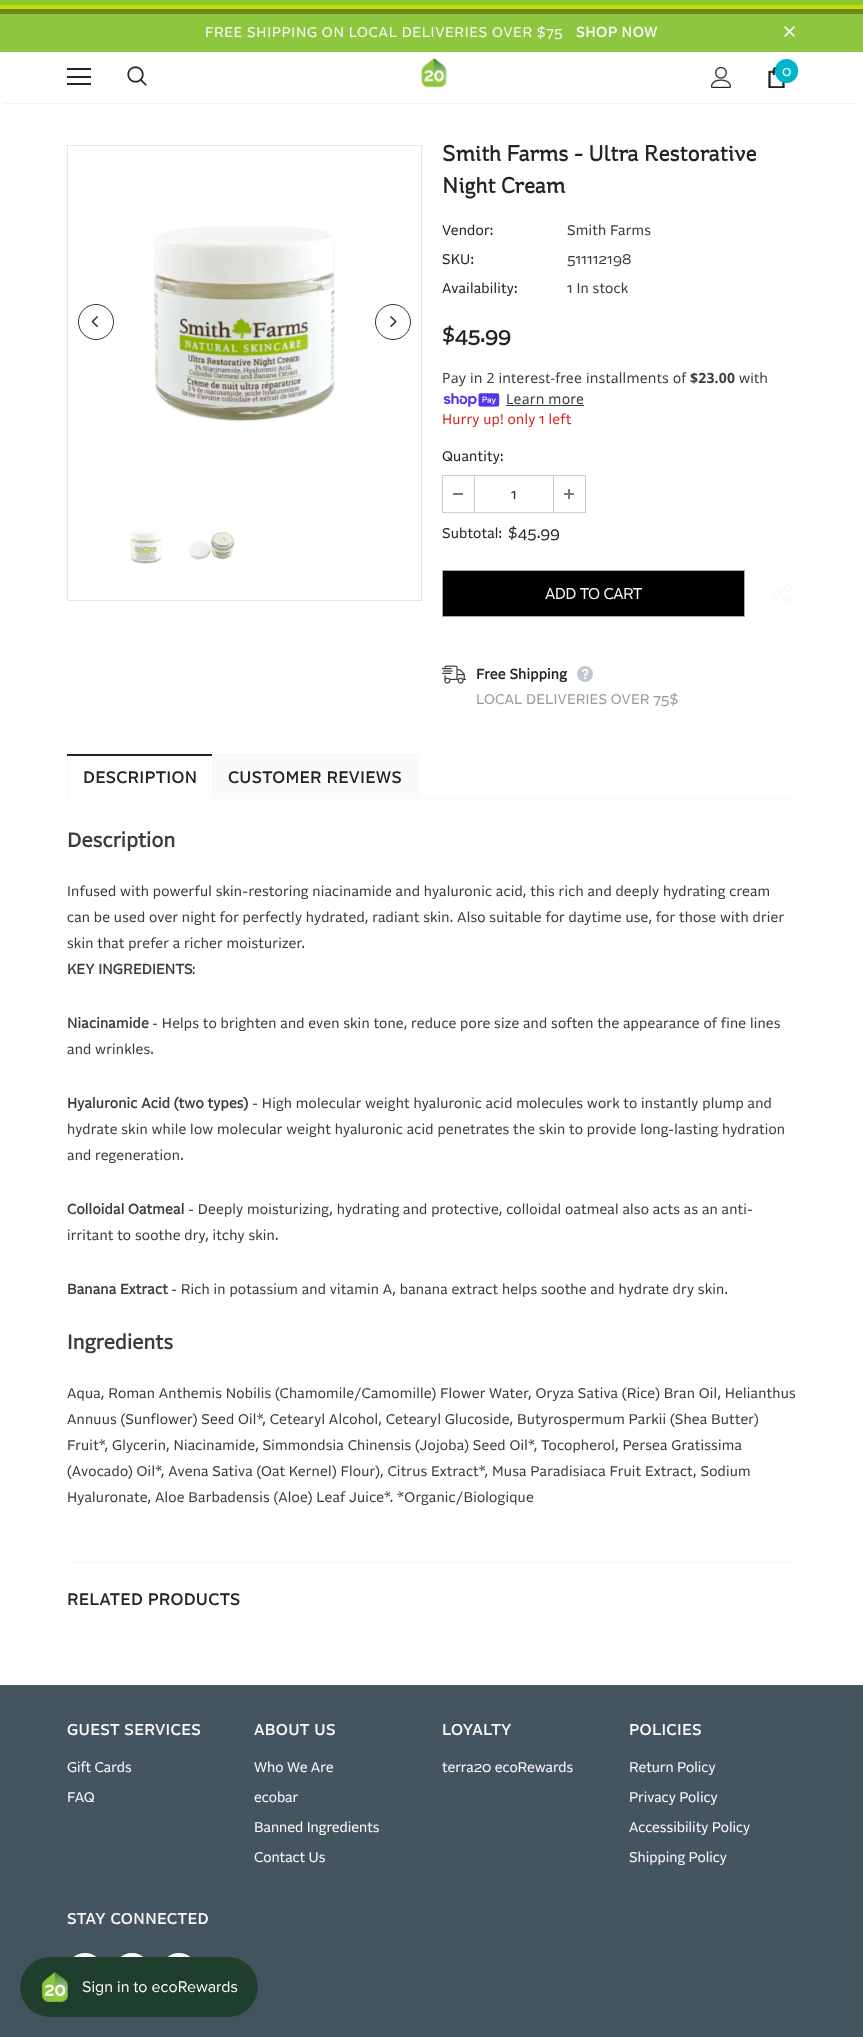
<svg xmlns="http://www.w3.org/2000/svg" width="863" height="2037">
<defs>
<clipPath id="clip1"><rect x="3" y="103" width="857" height="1"/></clipPath>
</defs>
<rect width="100%" height="100%" fill="#fff"/>
<rect width="863" height="5" fill="#8bc732"/>
<rect y="5" width="863" height="4" fill="#cadc00"/>
<rect y="9" width="863" height="5" fill="#6b8914"/>
<rect y="14" width="863" height="38" fill="#8dc63f"/>
<text x="205" y="37" style="font-family:'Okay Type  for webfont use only';font-size:14px;letter-spacing:0.7px;fill:#fafafa">FREE SHIPPING ON LOCAL DELIVERIES OVER $75</text>
<text x="576" y="37" style="font-family:'Okay Type  for webfont use only';font-size:14px;font-weight:bold;letter-spacing:0.7px;fill:#fafafa">SHOP NOW</text>
<image x="784" y="26" width="11" height="11" href="media/1.png"/>
<g clip-path="url(#clip1)">
<rect x="3" y="58" width="857" height="45" fill="#0000001f" filter="blur(1.5px)"/>
</g>
<rect x="67" y="68" width="24" height="2" fill="#232323"/>
<rect x="67" y="76" width="24" height="2" fill="#232323"/>
<rect x="67" y="83" width="24" height="2" fill="#232323"/>
<image x="127" y="66" width="20" height="20" href="media/2.png"/>
<image x="421" y="57" width="26" height="31" href="media/3.png"/>
<image x="711" y="67" width="20" height="21" href="media/4.png"/>
<image x="768" y="67" width="17" height="21" href="media/5.png"/>
<rect x="775" y="59" width="23" height="24" rx="11.5" fill="#00b5cb"/>
<text x="782" y="76" style="font-family:'Okay Type  for webfont use only';font-size:14px;fill:#fafafa">0</text>
<rect x="67.5" y="145.5" width="354" height="455" fill="none" stroke="#e6e6e6"/>
<circle cx="96" cy="322" r="17.5" fill="none" stroke="#323232"/>
<image x="91" y="316" width="7" height="12" href="media/6.png"/>
<image x="153" y="226" width="182" height="196" href="media/7.png"/>
<circle cx="393" cy="322" r="17.5" fill="none" stroke="#323232"/>
<image x="390" y="316" width="7" height="12" href="media/8.png"/>
<image x="130" y="531" width="32" height="33" href="media/9.png"/>
<image x="189" y="532" width="46" height="28" href="media/10.png"/>
<text x="442" y="161" style="font-family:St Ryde;font-size:22px;font-weight:bold;fill:#232323">Smith Farms - Ultra Restorative</text>
<text x="442" y="193" style="font-family:St Ryde;font-size:22px;font-weight:bold;fill:#232323">Night Cream</text>
<text x="442" y="235" style="font-family:'Okay Type  for webfont use only';font-size:14px;letter-spacing:0.2px;fill:#232323">Vendor:</text>
<text x="567" y="235" style="font-family:'Okay Type  for webfont use only';font-size:14px;letter-spacing:0.2px;fill:#3c3c3c">Smith Farms</text>
<text x="442" y="264" style="font-family:'Okay Type  for webfont use only';font-size:14px;letter-spacing:0.2px;fill:#232323">SKU:</text>
<text x="567" y="264" style="font-family:'Okay Type  for webfont use only';font-size:14px;letter-spacing:0.2px;fill:#3c3c3c">511112198</text>
<text x="442" y="293" style="font-family:'Okay Type  for webfont use only';font-size:14px;letter-spacing:0.2px;fill:#232323">Availability:</text>
<text x="567" y="293" style="font-family:'Okay Type  for webfont use only';font-size:14px;letter-spacing:0.2px;fill:#3c3c3c">1 In stock</text>
<text x="442" y="342" style="font-family:'Okay Type  for webfont use only';font-size:20px;font-weight:bold;letter-spacing:0.2px;fill:#232323">$45.99</text>
<text x="442" y="383" style="font-family:Noto Sans;font-size:14px;letter-spacing:0.2px;fill:#3c3c3c">Pay in 2 interest-free installments of</text>
<text x="690" y="383" style="font-family:Noto Sans;font-size:14px;font-weight:bold;letter-spacing:0.2px;fill:#3c3c3c">$23.00</text>
<text x="739" y="383" style="font-family:Noto Sans;font-size:14px;letter-spacing:0.2px;fill:#3c3c3c">with</text>
<image x="443" y="393" width="57" height="14" href="media/11.png"/>
<text x="506" y="404" style="font-family:Noto Sans;font-size:14px;letter-spacing:0.2px;fill:#3c3c3c">Learn more</text>
<rect x="506" y="405" width="78" height="1" fill="#3c3c3c"/>
<text x="442" y="424" style="font-family:'Okay Type  for webfont use only';font-size:14px;letter-spacing:0.2px;fill:#d62828">Hurry up! only 1 left</text>
<text x="442" y="461" style="font-family:'Okay Type  for webfont use only';font-size:14px;letter-spacing:0.2px;fill:#232323">Quantity:</text>
<rect x="442.5" y="475.5" width="143" height="37" fill="none" stroke="#cbcbcb"/>
<rect x="474" y="476" width="1" height="36" fill="#cbcbcb"/>
<rect x="453" y="493" width="10" height="2" fill="#7b7b7b"/>
<text x="511" y="499" style="font-family:'Okay Type  for webfont use only';font-size:14px;fill:#2d2d2d">1</text>
<rect x="553" y="476" width="1" height="36" fill="#cbcbcb"/>
<rect x="564" y="493" width="10" height="2" fill="#7b7b7b"/>
<rect x="568" y="489" width="2" height="10" fill="#7b7b7b"/>
<text x="442" y="538" style="font-family:'Okay Type  for webfont use only';font-size:14px;letter-spacing:0.2px;fill:#232323">Subtotal:</text>
<text x="508" y="538" style="font-family:'Okay Type  for webfont use only';font-size:15px;letter-spacing:0.2px;fill:#232323">$45.99</text>
<rect x="442.5" y="570.5" width="302" height="46" fill="#000" stroke="#a7a7a7"/>
<text x="545" y="599" style="font-family:'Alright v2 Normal';font-size:15px;font-weight:bold;letter-spacing:-0.1px;fill:#fafafa">ADD TO CART</text>
<image x="773" y="584" width="18" height="20" href="media/12.png"/>
<image x="442" y="665" width="24" height="19" href="media/13.png"/>
<text x="476" y="679" style="font-family:'Okay Type  for webfont use only';font-size:14px;font-weight:bold;letter-spacing:0.2px;fill:#232323">Free Shipping</text>
<image x="577" y="666" width="16" height="16" href="media/14.png"/>
<text x="476" y="704" style="font-family:'Okay Type  for webfont use only';font-size:14px;letter-spacing:0.2px;fill:#999">LOCAL DELIVERIES OVER 75$</text>
<rect x="67" y="798" width="730" height="1" fill="#f6f6f6"/>
<rect x="67" y="754" width="1" height="44" fill="#f6f6f6"/>
<rect x="67" y="754" width="146" height="2" fill="#232323"/>
<text x="83" y="783" style="font-family:'Okay Type  for webfont use only';font-size:16px;font-weight:bold;letter-spacing:0.75px;fill:#232323">DESCRIPTION</text>
<rect x="68" y="798" width="144" height="1" fill="#fff"/>
<rect x="213" y="755" width="205" height="43" fill="#fafafa"/>
<rect x="212" y="754" width="207" height="1" fill="#f6f6f6"/>
<rect x="418" y="754" width="1" height="44" fill="#f6f6f6"/>
<rect x="212" y="754" width="1" height="44" fill="#f6f6f6"/>
<text x="228" y="783" style="font-family:'Okay Type  for webfont use only';font-size:16px;font-weight:bold;letter-spacing:0.75px;fill:#232323">CUSTOMER REVIEWS</text>
<text x="67" y="847" style="font-family:'Okay Type  for webfont use only';font-size:20px;font-weight:bold;letter-spacing:0.2px;fill:#3c3c3c">Description</text>
<text x="67" y="896" style="font-family:'Okay Type  for webfont use only';font-size:14px;letter-spacing:0.2px;fill:#3c3c3c">Infused with powerful skin-restoring niacinamide and hyaluronic acid, this rich and deeply hydrating cream</text>
<text x="67" y="922" style="font-family:'Okay Type  for webfont use only';font-size:14px;letter-spacing:0.2px;fill:#3c3c3c">can be used over night for perfectly hydrated, radiant skin. Also suitable for daytime use, for those with drier</text>
<text x="67" y="948" style="font-family:'Okay Type  for webfont use only';font-size:14px;letter-spacing:0.2px;fill:#3c3c3c">skin that prefer a richer moisturizer.</text>
<text x="67" y="974" style="font-family:'Okay Type  for webfont use only';font-size:14px;font-weight:bold;letter-spacing:0.2px;fill:#3c3c3c">KEY INGREDIENTS</text>
<text x="192" y="974" style="font-family:'Okay Type  for webfont use only';font-size:14px;letter-spacing:0.2px;fill:#3c3c3c">:</text>
<text x="67" y="1028" style="font-family:'Okay Type  for webfont use only';font-size:14px;font-weight:bold;letter-spacing:0.2px;fill:#3c3c3c">Niacinamide</text>
<text x="152" y="1028" style="font-family:'Okay Type  for webfont use only';font-size:14px;letter-spacing:0.2px;fill:#3c3c3c">- Helps to brighten and even skin tone, reduce pore size and soften the appearance of fine lines</text>
<text x="67" y="1054" style="font-family:'Okay Type  for webfont use only';font-size:14px;letter-spacing:0.2px;fill:#3c3c3c">and wrinkles.</text>
<text x="67" y="1108" style="font-family:'Okay Type  for webfont use only';font-size:14px;font-weight:bold;letter-spacing:0.2px;fill:#3c3c3c">Hyaluronic Acid (two types)</text>
<text x="252" y="1108" style="font-family:'Okay Type  for webfont use only';font-size:14px;letter-spacing:0.2px;fill:#3c3c3c">- High molecular weight hyaluronic acid molecules work to instantly plump and</text>
<text x="67" y="1134" style="font-family:'Okay Type  for webfont use only';font-size:14px;letter-spacing:0.2px;fill:#3c3c3c">hydrate skin while low molecular weight hyaluronic acid penetrates the skin to provide long-lasting hydration</text>
<text x="67" y="1160" style="font-family:'Okay Type  for webfont use only';font-size:14px;letter-spacing:0.2px;fill:#3c3c3c">and regeneration.</text>
<text x="67" y="1214" style="font-family:'Okay Type  for webfont use only';font-size:14px;font-weight:bold;letter-spacing:0.2px;fill:#3c3c3c">Colloidal Oatmeal</text>
<text x="188" y="1214" style="font-family:'Okay Type  for webfont use only';font-size:14px;letter-spacing:0.2px;fill:#3c3c3c">- Deeply moisturizing, hydrating and protective, colloidal oatmeal also acts as an anti-</text>
<text x="67" y="1240" style="font-family:'Okay Type  for webfont use only';font-size:14px;letter-spacing:0.2px;fill:#3c3c3c">irritant to soothe dry, itchy skin.</text>
<text x="67" y="1294" style="font-family:'Okay Type  for webfont use only';font-size:14px;font-weight:bold;letter-spacing:0.2px;fill:#3c3c3c">Banana Extract</text>
<text x="171" y="1294" style="font-family:'Okay Type  for webfont use only';font-size:14px;letter-spacing:0.2px;fill:#3c3c3c">- Rich in potassium and vitamin A, banana extract helps soothe and hydrate dry skin.</text>
<text x="67" y="1349" style="font-family:'Okay Type  for webfont use only';font-size:20px;font-weight:bold;letter-spacing:0.2px;fill:#3c3c3c">Ingredients</text>
<text x="67" y="1398" style="font-family:'Okay Type  for webfont use only';font-size:14px;letter-spacing:0.2px;fill:#3c3c3c">Aqua, Roman Anthemis Nobilis (Chamomile/Camomille) Flower Water, Oryza Sativa (Rice) Bran Oil, Helianthus</text>
<text x="67" y="1424" style="font-family:'Okay Type  for webfont use only';font-size:14px;letter-spacing:0.2px;fill:#3c3c3c">Annuus (Sunflower) Seed Oil*, Cetearyl Alcohol, Cetearyl Glucoside, Butyrospermum Parkii (Shea Butter)</text>
<text x="67" y="1450" style="font-family:'Okay Type  for webfont use only';font-size:14px;letter-spacing:0.2px;fill:#3c3c3c">Fruit*, Glycerin, Niacinamide, Simmondsia Chinensis (Jojoba) Seed Oil*, Tocopherol, Persea Gratissima</text>
<text x="67" y="1476" style="font-family:'Okay Type  for webfont use only';font-size:14px;letter-spacing:0.2px;fill:#3c3c3c">(Avocado) Oil*, Avena Sativa (Oat Kernel) Flour), Citrus Extract*, Musa Paradisiaca Fruit Extract, Sodium</text>
<text x="67" y="1502" style="font-family:'Okay Type  for webfont use only';font-size:14px;letter-spacing:0.2px;fill:#3c3c3c">Hyaluronate, Aloe Barbadensis (Aloe) Leaf Juice*. *Organic/Biologique</text>
<rect x="67" y="1562" width="730" height="1" fill="#f6f6f6"/>
<text x="67" y="1605" style="font-family:'Okay Type  for webfont use only';font-size:16px;font-weight:bold;letter-spacing:0.75px;fill:#232323">RELATED PRODUCTS</text>
<rect y="1685" width="863" height="352" fill="#455560"/>
<text x="67" y="1735" style="font-family:'Okay Type  for webfont use only';font-size:15px;font-weight:bold;letter-spacing:0.75px;fill:#fafafa">GUEST SERVICES</text>
<text x="67" y="1772" style="font-family:'Okay Type  for webfont use only';font-size:14px;fill:#fafafa">Gift Cards</text>
<text x="67" y="1802" style="font-family:'Okay Type  for webfont use only';font-size:14px;fill:#fafafa">FAQ</text>
<text x="254" y="1735" style="font-family:'Okay Type  for webfont use only';font-size:15px;font-weight:bold;letter-spacing:0.75px;fill:#fafafa">ABOUT US</text>
<text x="254" y="1772" style="font-family:'Okay Type  for webfont use only';font-size:14px;fill:#fafafa">Who We Are</text>
<text x="254" y="1802" style="font-family:'Okay Type  for webfont use only';font-size:14px;fill:#fafafa">ecobar</text>
<text x="254" y="1832" style="font-family:'Okay Type  for webfont use only';font-size:14px;fill:#fafafa">Banned Ingredients</text>
<text x="254" y="1862" style="font-family:'Okay Type  for webfont use only';font-size:14px;fill:#fafafa">Contact Us</text>
<text x="442" y="1735" style="font-family:'Okay Type  for webfont use only';font-size:15px;font-weight:bold;letter-spacing:0.75px;fill:#fafafa">LOYALTY</text>
<text x="442" y="1772" style="font-family:'Okay Type  for webfont use only';font-size:14px;fill:#fafafa">terra20 ecoRewards</text>
<text x="629" y="1735" style="font-family:'Okay Type  for webfont use only';font-size:15px;font-weight:bold;letter-spacing:0.75px;fill:#fafafa">POLICIES</text>
<text x="629" y="1772" style="font-family:'Okay Type  for webfont use only';font-size:14px;fill:#fafafa">Return Policy</text>
<text x="629" y="1802" style="font-family:'Okay Type  for webfont use only';font-size:14px;fill:#fafafa">Privacy Policy</text>
<text x="629" y="1832" style="font-family:'Okay Type  for webfont use only';font-size:14px;fill:#fafafa">Accessibility Policy</text>
<text x="629" y="1862" style="font-family:'Okay Type  for webfont use only';font-size:14px;fill:#fafafa">Shipping Policy</text>
<text x="67" y="1924" style="font-family:'Okay Type  for webfont use only';font-size:15px;font-weight:bold;letter-spacing:0.75px;fill:#fafafa">STAY CONNECTED</text>
<circle cx="85" cy="1971" r="18" fill="#fff"/>
<circle cx="132" cy="1971" r="18" fill="#fff"/>
<circle cx="179" cy="1971" r="18" fill="#fff"/>
<rect x="20" y="1957" width="238" height="60" rx="30" fill="#0000000d" filter="blur(12.5px)"/>
<image x="20" y="1957" width="238" height="60" href="media/15.png"/>
</svg>
